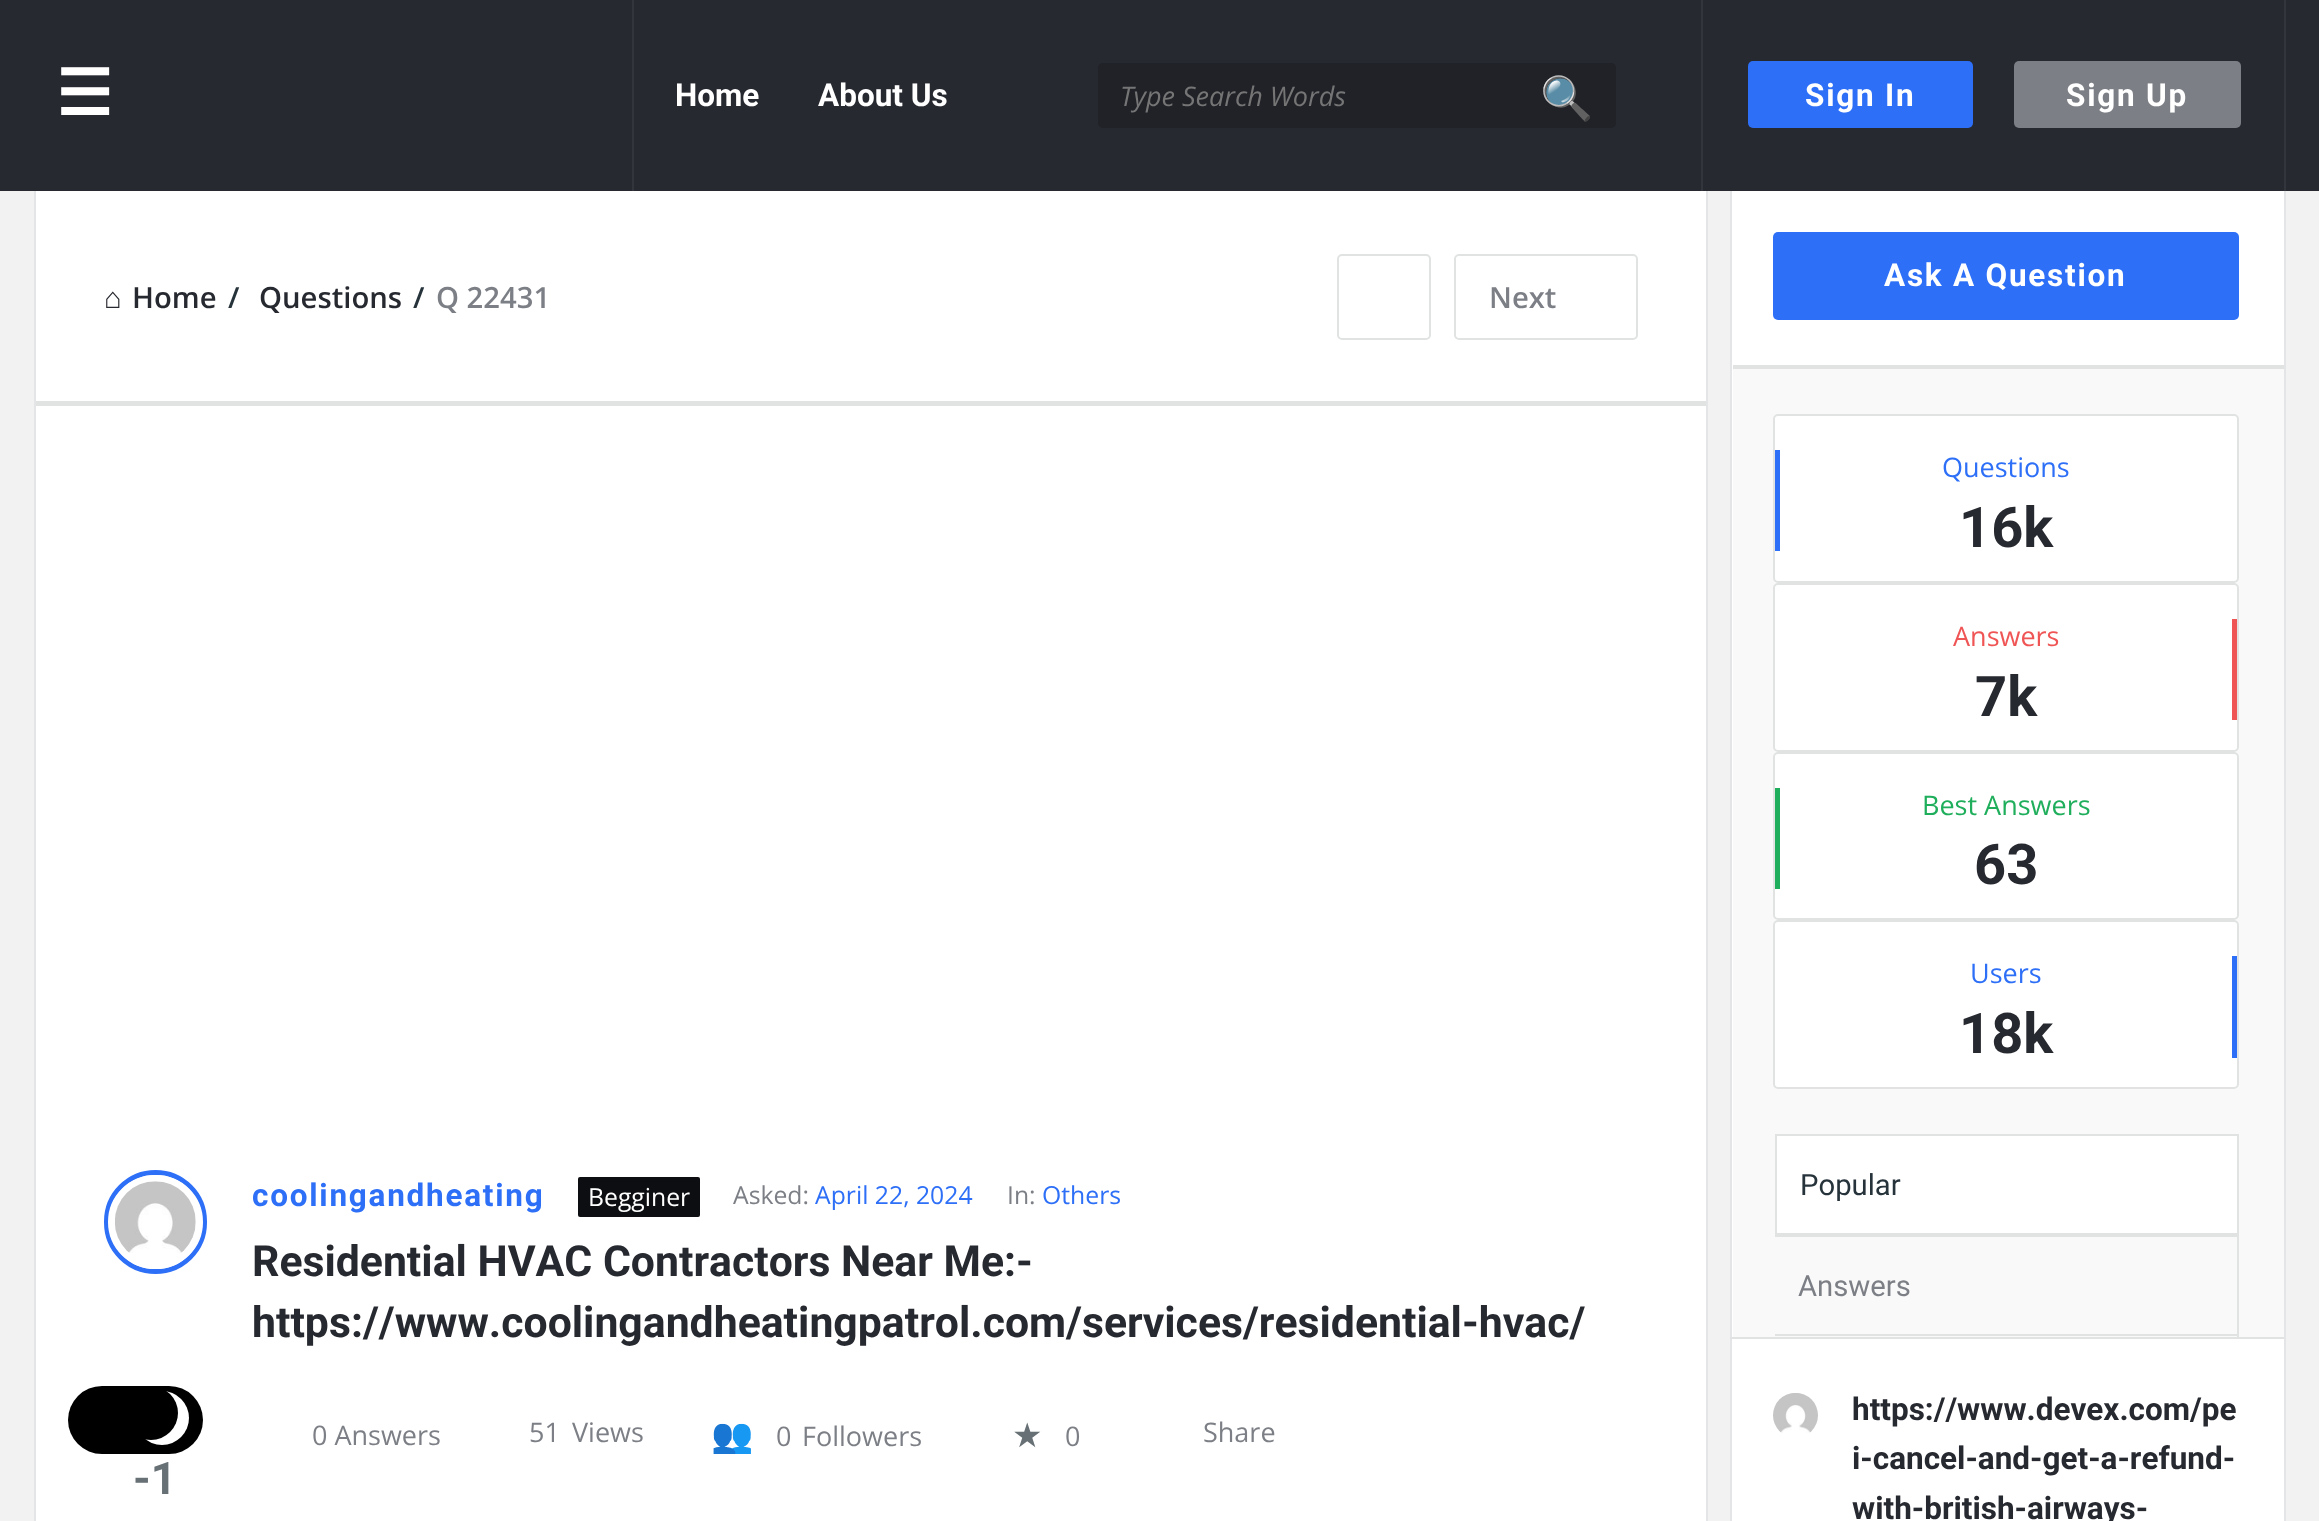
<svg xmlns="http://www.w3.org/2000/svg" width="2319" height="1521">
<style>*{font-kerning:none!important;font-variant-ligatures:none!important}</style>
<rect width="100%" height="100%" fill="#f2f2f2"/>
<rect width="2319" height="191" fill="#272930"/>
<text x="56" y="115" style="font-family:DejaVu Sans;font-size:63px;font-weight:bold;letter-spacing:1.75px;fill:#fff">☰</text>
<rect x="632" width="2" height="191" fill="#33353c"/>
<text x="675" y="106" style="font-family:Roboto;font-size:31.5px;font-weight:bold;fill:#fff">Home</text>
<text x="818" y="106" style="font-family:Roboto;font-size:31.5px;font-weight:bold;fill:#fff">About Us</text>
<rect x="1098" y="63" width="518" height="65" rx="5" fill="#202228"/>
<text x="1120" y="106" style="font-family:Open Sans;font-size:27px;font-style:italic;fill:#757575">Type Search Words</text>
<text x="1540" y="113" style="font-family:Noto Color Emoji;font-size:42.75px;fill:#fff">🔍</text>
<rect x="2284" width="2" height="191" fill="#33353c"/>
<rect x="1701" width="2" height="191" fill="#33353c"/>
<rect x="1748" y="61" width="225" height="67" rx="5" fill="#2d6ff7"/>
<text x="1805" y="106" style="font-family:Roboto;font-size:31.5px;font-weight:bold;letter-spacing:1.75px;fill:#fff">Sign In</text>
<rect x="2014" y="61" width="227" height="67" rx="5" fill="#7c7f85"/>
<text x="2066" y="106" style="font-family:Roboto;font-size:31.5px;font-weight:bold;letter-spacing:1.75px;fill:#fff">Sign Up</text>
<rect x="36" y="191" width="1670" height="1330" fill="#fff"/>
<rect x="1706" y="191" width="2" height="1330" fill="#e4e5e6"/>
<rect x="34" y="191" width="2" height="1330" fill="#e4e5e6"/>
<rect x="36" y="401" width="1670" height="5" fill="#e1e3e3"/>
<text x="104" y="308" style="font-family:Liberation Serif;font-size:29.25px;font-weight:bold;fill:#272930">⌂</text>
<text x="132" y="308" style="font-family:Open Sans;font-size:29.25px;font-weight:600;fill:#272930">Home</text>
<text x="228" y="308" style="font-family:Open Sans;font-size:29.25px;font-weight:600;fill:#26333b">/</text>
<text x="259" y="308" style="font-family:Open Sans;font-size:29.25px;font-weight:600;fill:#272930">Questions</text>
<text x="413" y="308" style="font-family:Open Sans;font-size:29.25px;font-weight:600;fill:#26333b">/</text>
<text x="436" y="308" style="font-family:Open Sans;font-size:29.25px;font-weight:600;fill:#7c7f85">Q 22431</text>
<rect x="1338" y="255" width="92" height="84" rx="4" fill="none" stroke="#e1e3e3" stroke-width="2"/>
<rect x="1455" y="255" width="182" height="84" rx="4" fill="none" stroke="#e1e3e3" stroke-width="2"/>
<text x="1489" y="308" style="font-family:Open Sans;font-size:29.25px;font-weight:600;fill:#7c7f85">Next</text>
<rect x="106.5" y="1172.5" width="98" height="99" rx="49" fill="none" stroke="#2d6ff7" stroke-width="5"/>
<rect x="111.5" y="1178.5" width="88" height="87" rx="43.5" fill="none" stroke="#fff" stroke-width="7"/>
<image x="115" y="1181" width="81" height="72" href="media/1.png"/>
<text x="252" y="1206" style="font-family:Roboto;font-size:31.5px;font-weight:bold;letter-spacing:1.75px;fill:#2d6ff7">coolingandheating</text>
<rect x="578" y="1177" width="122" height="40" rx="2" fill="#0d0e11"/>
<text x="588" y="1206" style="font-family:Open Sans;font-size:24.75px;fill:#fff">Begginer</text>
<text x="733" y="1204" style="font-family:Open Sans;font-size:24.75px;fill:#7c7f85">Asked:</text>
<text x="815" y="1204" style="font-family:Open Sans;font-size:24.75px;fill:#2d6ff7">April 22, 2024</text>
<text x="1007" y="1204" style="font-family:Open Sans;font-size:24.75px;fill:#7c7f85">In:</text>
<text x="1042" y="1204" style="font-family:Open Sans;font-size:24.75px;fill:#2d6ff7">Others</text>
<text x="252" y="1276" style="font-family:Roboto;font-size:42.75px;font-weight:bold;fill:#272930">Residential HVAC Contractors Near Me:-</text>
<text x="252" y="1337" style="font-family:Roboto;font-size:42.75px;font-weight:bold;fill:#272930">https://www.coolingandheatingpatrol.com/services/residential-hvac/</text>
<text x="312" y="1445" style="font-family:Open Sans;font-size:27px;fill:#7c7f85">0 Answers</text>
<text x="529" y="1442" style="font-family:Open Sans;font-size:27px;fill:#7c7f85">51</text>
<text x="572" y="1442" style="font-family:Open Sans;font-size:27px;fill:#7c7f85">Views</text>
<text x="711" y="1447" style="font-family:Noto Color Emoji;font-size:34px;fill:#677075">👥</text>
<text x="776" y="1446" style="font-family:Open Sans;font-size:27px;fill:#7c7f85">0</text>
<text x="802" y="1446" style="font-family:Open Sans;font-size:27px;fill:#7c7f85">Followers</text>
<text x="1012" y="1447" style="font-family:DejaVu Sans;font-size:34px;fill:#677075">★</text>
<text x="1065" y="1446" style="font-family:Open Sans;font-size:27px;fill:#7c7f85">0</text>
<text x="1203" y="1442" style="font-family:Open Sans;font-size:27px;fill:#7c7f85">Share</text>
<text x="133" y="1494" style="font-family:Roboto;font-size:45px;font-weight:bold;fill:#677075">-1</text>
<rect x="1732" y="191" width="552" height="1330" fill="#fff"/>
<rect x="2284" y="191" width="2" height="1330" fill="#e4e5e6"/>
<rect x="1730" y="191" width="2" height="1330" fill="#e4e5e6"/>
<rect x="1733" y="365" width="551" height="4" fill="#e1e3e3"/>
<rect x="1773" y="232" width="466" height="88" rx="5" fill="#2d6ff7"/>
<text x="1884" y="286" style="font-family:Roboto;font-size:31.5px;font-weight:bold;letter-spacing:1.75px;fill:#fff">Ask A Question</text>
<rect x="1733" y="369" width="551" height="968" fill="#f9f9f9"/>
<rect x="1774" y="415" width="464" height="167" rx="4" fill="#fff" stroke="#e1e3e3" stroke-width="2"/>
<rect x="1775" y="450" width="5" height="101" fill="#2d6ff7"/>
<text x="1942" y="477" style="font-family:Open Sans;font-size:27px;fill:#2d6ff7">Questions</text>
<text x="1959" y="547" style="font-family:Roboto;font-size:56px;font-weight:bold;fill:#272930">16k</text>
<rect x="1774" y="584" width="464" height="167" rx="4" fill="#fff" stroke="#e1e3e3" stroke-width="2"/>
<text x="1953" y="646" style="font-family:Open Sans;font-size:27px;fill:#f05555">Answers</text>
<text x="1975" y="716" style="font-family:Roboto;font-size:56px;font-weight:bold;fill:#272930">7k</text>
<rect x="2232" y="619" width="5" height="101" fill="#f05555"/>
<rect x="1774" y="753" width="464" height="166" rx="4" fill="#fff" stroke="#e1e3e3" stroke-width="2"/>
<rect x="1775" y="788" width="5" height="101" fill="#1fae5b"/>
<text x="1922" y="815" style="font-family:Open Sans;font-size:27px;fill:#1fae5b">Best Answers</text>
<text x="1974" y="884" style="font-family:Roboto;font-size:56px;font-weight:bold;fill:#272930">63</text>
<rect x="1774" y="921" width="464" height="167" rx="4" fill="#fff" stroke="#e1e3e3" stroke-width="2"/>
<text x="1970" y="983" style="font-family:Open Sans;font-size:27px;fill:#2d6ff7">Users</text>
<text x="1959" y="1053" style="font-family:Roboto;font-size:56px;font-weight:bold;fill:#272930">18k</text>
<rect x="2232" y="956" width="5" height="102" fill="#2d6ff7"/>
<rect x="1730" y="1337" width="554" height="2" fill="#e1e3e3"/>
<rect x="1776" y="1135" width="462" height="99" fill="#fff" stroke="#e1e3e3" stroke-width="2"/>
<text x="1800" y="1195" style="font-family:Roboto;font-size:29.25px;fill:#26333b">Popular</text>
<rect x="1775" y="1235" width="464" height="2" fill="#e1e3e3"/>
<rect x="2237" y="1235" width="2" height="102" fill="#e1e3e3"/>
<rect x="1775" y="1334" width="464" height="2" fill="#e1e3e3"/>
<text x="1798" y="1296" style="font-family:Roboto;font-size:29.25px;fill:#7c7f85">Answers</text>
<image x="1773" y="1393" width="45" height="40" href="media/2.png"/>
<text x="1852" y="1420" style="font-family:Roboto;font-size:31.5px;font-weight:bold;fill:#272930">https://www.devex.com/pe</text>
<text x="1852" y="1469" style="font-family:Roboto;font-size:31.5px;font-weight:bold;fill:#272930">i-cancel-and-get-a-refund-</text>
<text x="1852" y="1519" style="font-family:Roboto;font-size:31.5px;font-weight:bold;fill:#272930">with-british-airways-</text>
<rect x="68" y="1386" width="135" height="68" rx="34" fill="#000"/>
<circle cx="162" cy="1418" r="27" fill="#fff"/>
<circle cx="151" cy="1413" r="27" fill="#000"/>
</svg>
